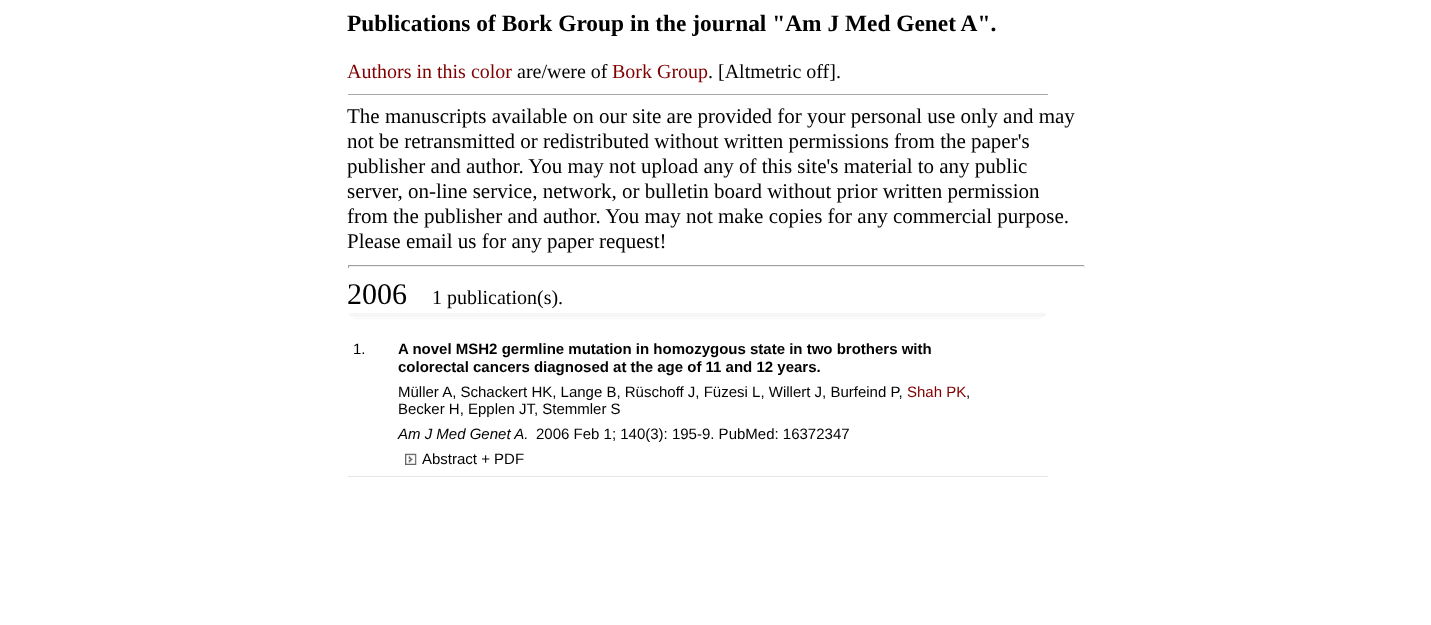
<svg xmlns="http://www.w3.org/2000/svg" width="1431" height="625">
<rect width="100%" height="100%" fill="#fff"/>
<rect x="348" y="94" width="700" height="1" fill="#a6a6a6"/>
<text x="347" y="31" style="font-family:Liberation Serif;font-size:23.4px;font-weight:bold;fill:#000">Publications of Bork Group in the journal "Am J Med Genet A".</text>
<text x="347" y="78" style="font-family:Liberation Serif;font-size:20px;fill:#800000">Authors in this color</text>
<text x="517" y="78" style="font-family:Liberation Serif;font-size:20px;fill:#000">are/were of</text>
<text x="612" y="78" style="font-family:Liberation Serif;font-size:20px;fill:#800000">Bork Group</text>
<text x="708" y="78" style="font-family:Liberation Serif;font-size:20px;fill:#000">. [Altmetric off].</text>
<text x="347" y="123" style="font-family:Liberation Serif;font-size:21px;fill:#000">The manuscripts available on our site are provided for your personal use only and may</text>
<text x="347" y="148" style="font-family:Liberation Serif;font-size:21px;fill:#000">not be retransmitted or redistributed without written permissions from the paper's</text>
<text x="347" y="173" style="font-family:Liberation Serif;font-size:21px;fill:#000">publisher and author. You may not upload any of this site's material to any public</text>
<text x="347" y="198" style="font-family:Liberation Serif;font-size:21px;fill:#000">server, on-line service, network, or bulletin board without prior written permission</text>
<text x="347" y="223" style="font-family:Liberation Serif;font-size:21px;fill:#000">from the publisher and author. You may not make copies for any commercial purpose.</text>
<text x="347" y="248" style="font-family:Liberation Serif;font-size:21px;fill:#000">Please email us for any paper request!</text>
<rect x="348" y="265" width="737" height="1" fill="#9f9f9f"/>
<rect x="1084" y="265" width="1" height="3" fill="#eee"/>
<rect x="348" y="266" width="737" height="1" fill="#eee"/>
<rect x="348" y="265" width="1" height="3" fill="#9f9f9f"/>
<text x="347" y="304" style="font-family:Liberation Serif;font-size:30px;fill:#000">2006</text>
<text x="432" y="304" style="font-family:Liberation Serif;font-size:20px;fill:#000">1 publication(s).</text>
<rect x="349" y="313" width="697" height="3" fill="#f6f6f6"/>
<rect x="351" y="316" width="693" height="1" fill="#f6f6f6"/>
<rect x="354" y="318" width="687" height="1" fill="#f6f6f6"/>
<rect x="348" y="476" width="700" height="1" fill="#e6e6e6"/>
<text x="353" y="354" style="font-family:Liberation Sans;font-size:15px;fill:#000">1.</text>
<text x="398" y="354" style="font-family:Liberation Sans;font-size:15px;font-weight:bold;fill:#000">A novel MSH2 germline mutation in homozygous state in two brothers with</text>
<text x="398" y="372" style="font-family:Liberation Sans;font-size:15px;font-weight:bold;fill:#000">colorectal cancers diagnosed at the age of 11 and 12 years.</text>
<text x="398" y="397" style="font-family:Liberation Sans;font-size:15px;fill:#000">Müller A, Schackert HK, Lange B, Rüschoff J, Füzesi L, Willert J, Burfeind P,</text>
<text x="907" y="397" style="font-family:Liberation Sans;font-size:15px;fill:#800000">Shah PK</text>
<text x="966" y="397" style="font-family:Liberation Sans;font-size:15px;fill:#000">,</text>
<text x="398" y="414" style="font-family:Liberation Sans;font-size:15px;fill:#000">Becker H, Epplen JT, Stemmler S</text>
<text x="398" y="439" style="font-family:Liberation Sans;font-size:15px;font-style:italic;fill:#000">Am J Med Genet A.</text>
<text x="536" y="439" style="font-family:Liberation Sans;font-size:15px;fill:#000">2006 Feb 1; 140(3): 195-9. PubMed: 16372347</text>
<image x="405" y="453" width="12" height="12" href="media/1.png"/>
<text x="422" y="464" style="font-family:Liberation Sans;font-size:15px;fill:#000">Abstract + PDF</text>
</svg>
